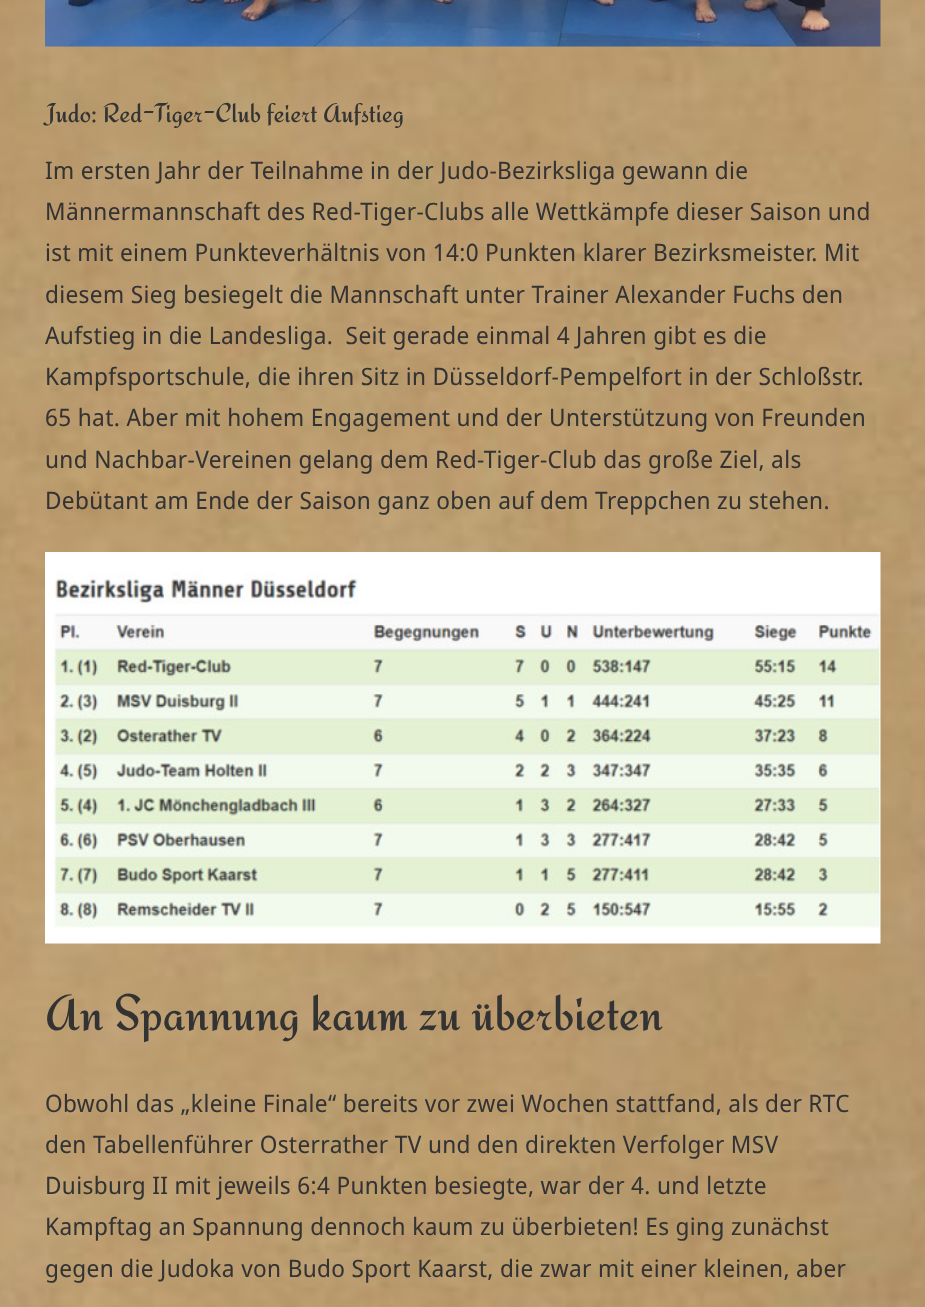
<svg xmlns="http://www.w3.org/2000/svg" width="925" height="1307">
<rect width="100%" height="100%" fill="#fff"/>
<image x="0" y="0" width="925" height="1307" href="media/1.png"/>
<image x="45" y="0" width="836" height="47" href="media/2.png"/>
<text x="45" y="122" style="font-family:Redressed;font-size:27px;fill:#333">Judo: Red-Tiger-Club feiert Aufstieg</text>
<text x="45" y="179" style="font-family:Noto Sans Display;font-size:24px;letter-spacing:0.35px;fill:#333">Im ersten Jahr der Teilnahme in der Judo-Bezirksliga gewann die</text>
<text x="45" y="220" style="font-family:Noto Sans Display;font-size:24px;letter-spacing:0.35px;fill:#333">Männermannschaft des Red-Tiger-Clubs alle Wettkämpfe dieser Saison und</text>
<text x="45" y="261" style="font-family:Noto Sans Display;font-size:24px;letter-spacing:0.35px;fill:#333">ist mit einem Punkteverhältnis von 14:0 Punkten klarer Bezirksmeister. Mit</text>
<text x="45" y="303" style="font-family:Noto Sans Display;font-size:24px;letter-spacing:0.35px;fill:#333">diesem Sieg besiegelt die Mannschaft unter Trainer Alexander Fuchs den</text>
<text x="45" y="344" style="font-family:Noto Sans Display;font-size:24px;letter-spacing:0.35px;fill:#333" xml:space="preserve">Aufstieg in die Landesliga.  Seit gerade einmal 4 Jahren gibt es die</text>
<text x="45" y="385" style="font-family:Noto Sans Display;font-size:24px;letter-spacing:0.35px;fill:#333">Kampfsportschule, die ihren Sitz in Düsseldorf-Pempelfort in der Schloßstr.</text>
<text x="45" y="426" style="font-family:Noto Sans Display;font-size:24px;letter-spacing:0.35px;fill:#333">65 hat. Aber mit hohem Engagement und der Unterstützung von Freunden</text>
<text x="45" y="468" style="font-family:Noto Sans Display;font-size:24px;letter-spacing:0.35px;fill:#333">und Nachbar-Vereinen gelang dem Red-Tiger-Club das große Ziel, als</text>
<text x="45" y="509" style="font-family:Noto Sans Display;font-size:24px;letter-spacing:0.35px;fill:#333">Debütant am Ende der Saison ganz oben auf dem Treppchen zu stehen.</text>
<image x="45" y="552" width="836" height="392" href="media/3.png"/>
<text x="45" y="1030" style="font-family:Redressed;font-size:51px;fill:#333">An Spannung kaum zu überbieten</text>
<text x="45" y="1112" style="font-family:Noto Sans Display;font-size:24px;letter-spacing:0.35px;fill:#333">Obwohl das „kleine Finale“ bereits vor zwei Wochen stattfand, als der RTC</text>
<text x="45" y="1153" style="font-family:Noto Sans Display;font-size:24px;letter-spacing:0.35px;fill:#333">den Tabellenführer Osterrather TV und den direkten Verfolger MSV</text>
<text x="45" y="1194" style="font-family:Noto Sans Display;font-size:24px;letter-spacing:0.35px;fill:#333">Duisburg II mit jeweils 6:4 Punkten besiegte, war der 4. und letzte</text>
<text x="45" y="1235" style="font-family:Noto Sans Display;font-size:24px;letter-spacing:0.35px;fill:#333">Kampftag an Spannung dennoch kaum zu überbieten! Es ging zunächst</text>
<text x="45" y="1277" style="font-family:Noto Sans Display;font-size:24px;letter-spacing:0.35px;fill:#333">gegen die Judoka von Budo Sport Kaarst, die zwar mit einer kleinen, aber</text>
</svg>
